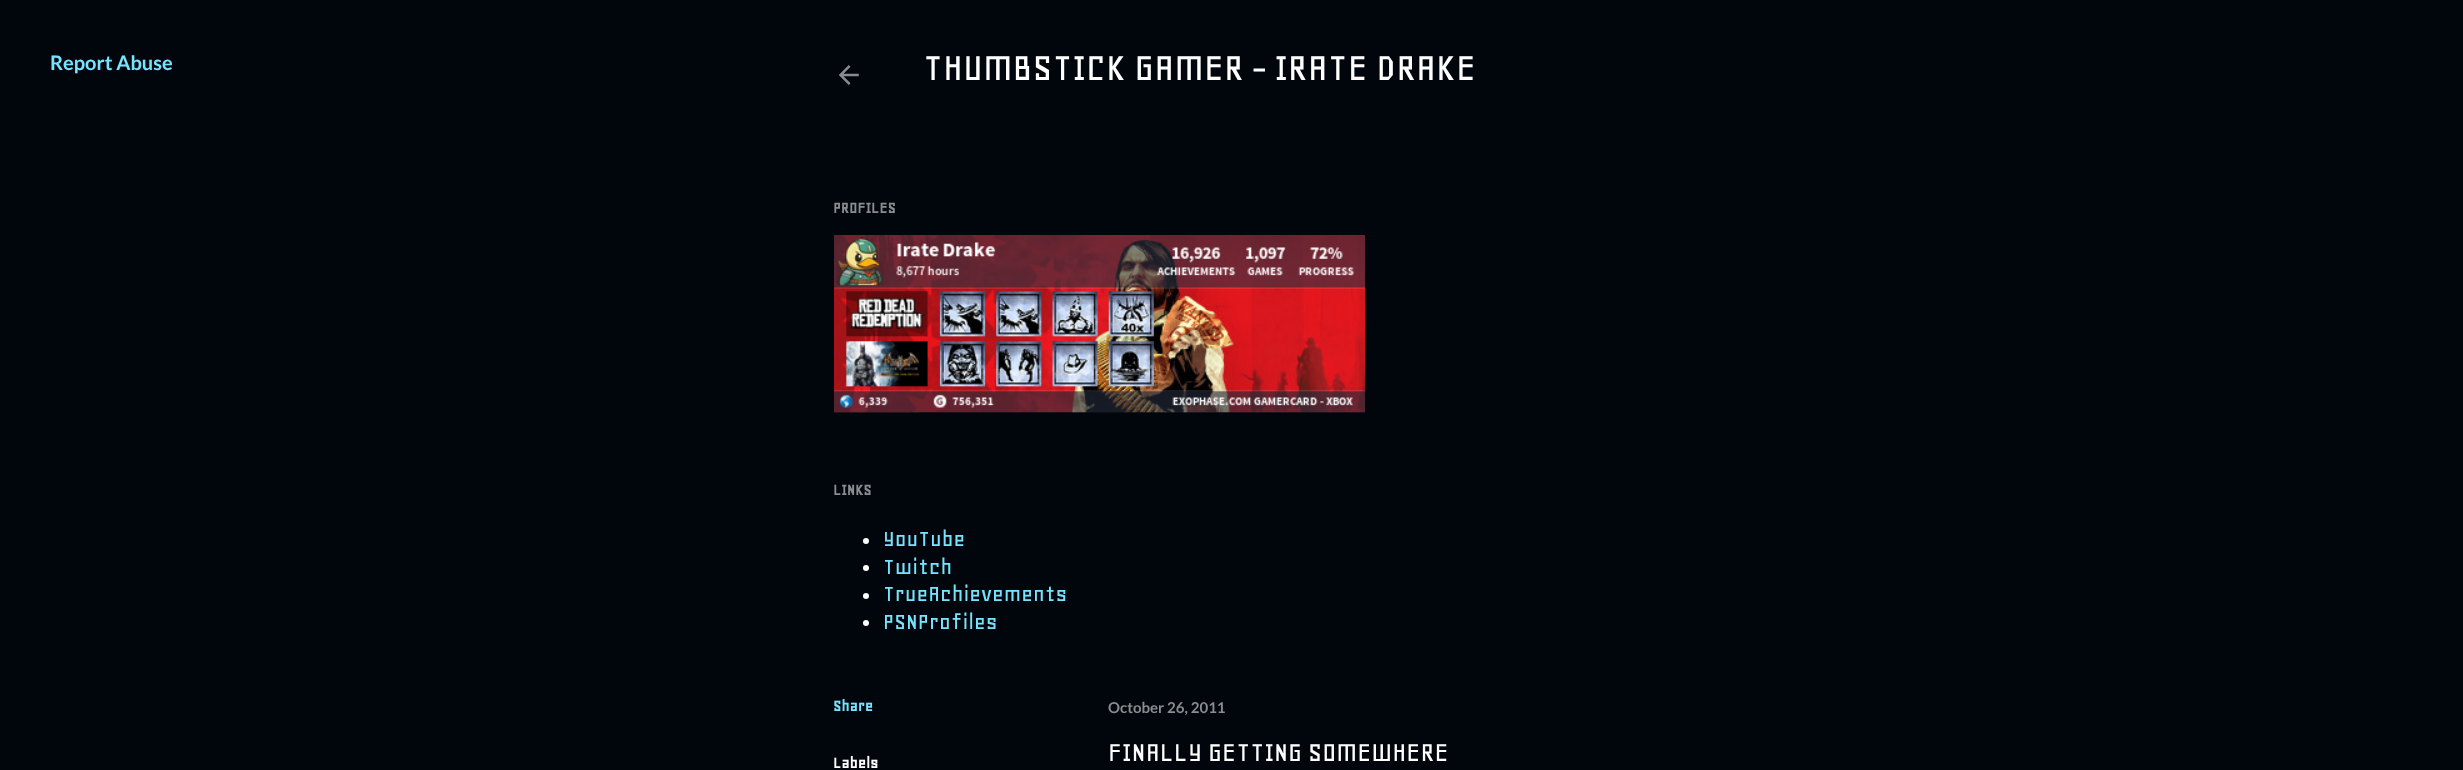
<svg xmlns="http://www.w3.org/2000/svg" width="2463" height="770">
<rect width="100%" height="100%" fill="#01050c"/>
<text x="50" y="70" style="font-family:Lato;font-size:20px;font-weight:bold;fill:#77e4ff">Report Abuse</text>
<image x="839" y="65" width="20" height="20" href="media/1.png"/>
<text x="923" y="80" style="font-family:Geo;font-size:42.5px;fill:#fff">THUMBSTICK GAMER - IRATE DRAKE</text>
<text x="833" y="213" style="font-family:Geo;font-size:17.5px;font-weight:bold;fill:#8a8c8f">PROFILES</text>
<image x="834" y="235" width="531" height="178" href="media/2.png"/>
<text x="833" y="495" style="font-family:Geo;font-size:17.5px;font-weight:bold;fill:#8a8c8f">LINKS</text>
<circle cx="866" cy="541" r="3" fill="#fff"/>
<text x="883" y="546" style="font-family:Geo;font-size:25px;fill:#77e4ff">YouTube</text>
<circle cx="866" cy="568" r="3" fill="#fff"/>
<text x="883" y="574" style="font-family:Geo;font-size:25px;fill:#77e4ff">Twitch</text>
<circle cx="866" cy="596" r="3" fill="#fff"/>
<text x="883" y="601" style="font-family:Geo;font-size:25px;fill:#77e4ff">TrueAchievements</text>
<circle cx="866" cy="623" r="3" fill="#fff"/>
<text x="883" y="629" style="font-family:Geo;font-size:25px;fill:#77e4ff">PSNProfiles</text>
<text x="833" y="711" style="font-family:Geo;font-size:17.5px;font-weight:bold;fill:#77e4ff">Share</text>
<text x="833" y="768" style="font-family:Geo;font-size:17.5px;font-weight:bold;fill:#fff">Labels</text>
<text x="1108" y="713" style="font-family:Lato;font-size:15px;font-weight:bold;fill:#8a8c8f">October 26, 2011</text>
<text x="1108" y="761" style="font-family:Geo;font-size:30px;fill:#fff">FINALLY GETTING SOMEWHERE</text>
</svg>
